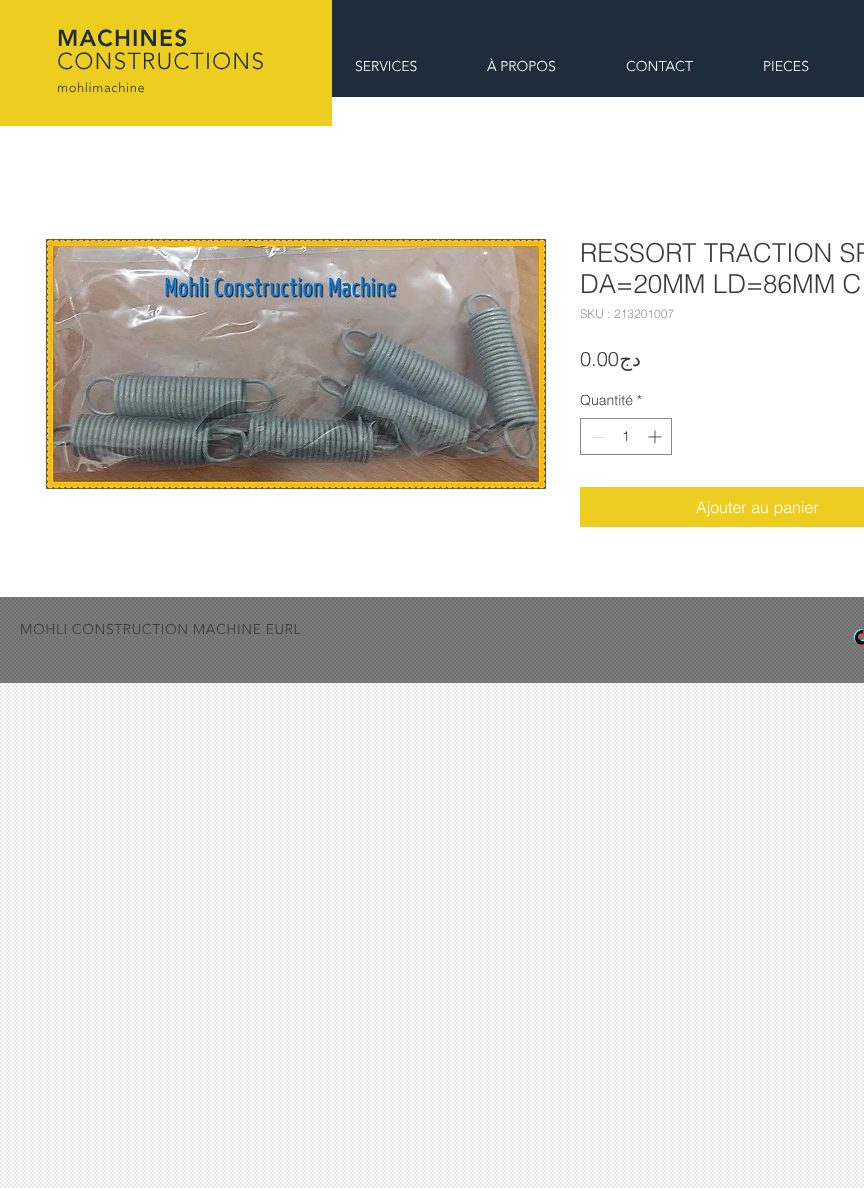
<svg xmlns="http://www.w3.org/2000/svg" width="864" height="1188">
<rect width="100%" height="100%" fill="#fff"/>
<rect width="332" height="126" fill="#edcd1f"/>
<text x="57" y="46" style="font-family:'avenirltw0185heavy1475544';font-size:23px;font-weight:900;letter-spacing:1.1px;fill:#1e2d3b">MACHINES</text>
<text x="57" y="69" style="font-family:'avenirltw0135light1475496';font-size:23px;font-weight:300;letter-spacing:1.1px;fill:#1e2d3b">CONSTRUCTIONS</text>
<text x="57" y="92" style="font-family:'avenirltw0135light1475496';font-size:13px;font-weight:300;letter-spacing:0.6px;fill:#1e2d3b">mohlimachine</text>
<rect x="332" width="532" height="97" fill="#1e2d3b"/>
<text x="355" y="71" style="font-family:'avenirltw0135light1475496';font-size:14px;font-weight:300;fill:#fff">SERVICES</text>
<text x="487" y="71" style="font-family:'avenirltw0135light1475496';font-size:14px;font-weight:300;fill:#fff">À PROPOS</text>
<text x="626" y="71" style="font-family:'avenirltw0135light1475496';font-size:14px;font-weight:300;fill:#fff">CONTACT</text>
<text x="763" y="71" style="font-family:'avenirltw0135light1475496';font-size:14px;font-weight:300;fill:#fff">PIECES</text>
<rect x="45.5" y="238.5" width="501" height="251" fill="none" stroke="#f7f7f7"/>
<image x="46" y="239" width="500" height="250" href="media/1.png"/>
<text x="580" y="262" style="font-family:helvetica;font-size:26px;font-weight:300;fill:#3b3a3a">RESSORT TRACTION SP</text>
<text x="580" y="293" style="font-family:helvetica;font-size:26px;font-weight:300;fill:#3b3a3a">DA=20MM LD=86MM C</text>
<text x="580" y="318" style="font-family:helvetica;font-size:12px;font-weight:300;fill:#949494">SKU : 213201007</text>
<text x="580" y="366" style="font-family:helvetica;font-size:20px;font-weight:300;fill:#3b3a3a">0.00</text>
<text x="641" y="366" style="font-family:DejaVu Sans;font-size:20px;direction:rtl;fill:#3b3a3a">دج</text>
<text x="580" y="405" style="font-family:helvetica;font-size:14px;font-weight:300;fill:#3b3a3a">Quantité *</text>
<rect x="580.5" y="418.5" width="91" height="36" fill="none" stroke="#898989"/>
<rect x="592" y="437" width="13" height="1" fill="#e3e3e3"/>
<text x="622" y="441" style="font-family:helvetica;font-size:14px;font-weight:300;fill:#3b3a3a">1</text>
<image x="648" y="430" width="14" height="14" href="media/2.png"/>
<rect x="580" y="487" width="284" height="40" fill="#edcd1f"/>
<text x="696" y="513" style="font-family:helvetica;font-size:16px;font-weight:300;fill:#fff">Ajouter au panier</text>
<image x="0" y="597" width="864" height="591" href="media/4.png"/>
<rect y="597" width="864" height="86" fill="#23232399"/>
<text x="20" y="634" style="font-family:'avenirltw0135light1475496';font-size:14px;font-weight:300;letter-spacing:0.55px;fill:#3b3a3a">MOHLI CONSTRUCTION MACHINE EURL</text>
<image x="853" y="628" width="11" height="18" href="media/3.png"/>
</svg>
